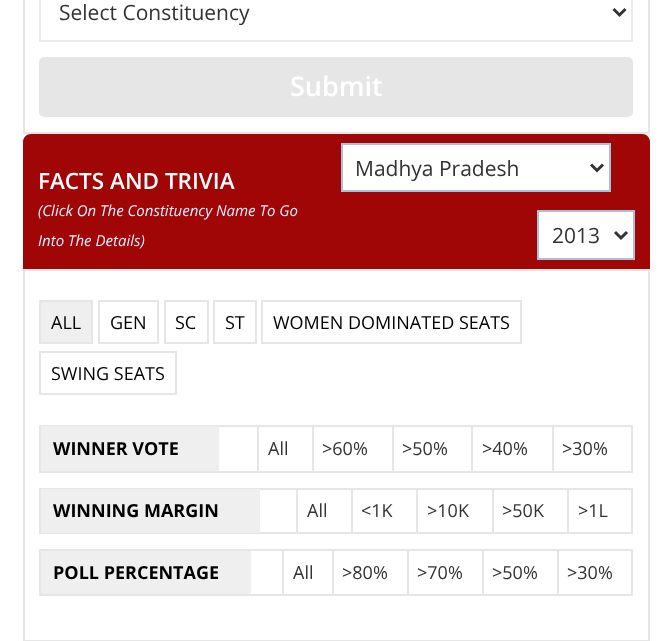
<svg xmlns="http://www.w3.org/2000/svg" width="671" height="641">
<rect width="100%" height="100%" fill="#fff"/>
<rect x="648" width="2" height="134" fill="#e6e6e6"/>
<rect x="23" y="132" width="627" height="2" fill="#e6e6e6"/>
<rect x="23" width="2" height="134" fill="#e6e6e6"/>
<rect x="40" y="-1" width="592" height="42" fill="none" stroke="#ebebeb" stroke-width="2"/>
<path d="M613.5 9l6 6l6-6" fill="none" stroke="#333" stroke-width="3"/>
<text x="59" y="20" style="font-family:Open Sans;font-size:21px;fill:#333">Select Constituency</text>
<rect x="39" y="57" width="594" height="60" rx="5" fill="#e6e6e6"/>
<text x="290" y="96" style="font-family:Open Sans;font-size:27px;font-weight:600;fill:#fff">Submit</text>
<path d="M31 134h611c4.5 0 8 3.5 8 8v127h-627v-127c0-4.5 3.5-8 8-8z" fill="#a00606"/>
<text x="38" y="189" style="font-family:Open Sans;font-size:22.5px;font-weight:600;fill:#fff">FACTS AND TRIVIA</text>
<text x="38" y="216" style="font-family:Open Sans;font-size:15px;font-style:italic;fill:#e2efff">(Click On The Constituency Name To Go</text>
<text x="38" y="246" style="font-family:Open Sans;font-size:15px;font-style:italic;fill:#e2efff">Into The Details)</text>
<rect x="342" y="144" width="268" height="47" fill="#fff" stroke="#a7c1dc" stroke-width="2"/>
<path d="M591 164.5l6 6l6-6" fill="none" stroke="#333" stroke-width="3"/>
<text x="355" y="176" style="font-family:Open Sans;font-size:21px;fill:#333">Madhya Pradesh</text>
<rect x="538" y="211" width="96" height="48" fill="#fff" stroke="#a7c1dc" stroke-width="2"/>
<path d="M615 232l6 6l6-6" fill="none" stroke="#333" stroke-width="3"/>
<text x="552" y="243" style="font-family:Open Sans;font-size:21px;fill:#333">2013</text>
<rect x="24" y="270" width="625" height="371" fill="none" stroke="#e6e6e6" stroke-width="2"/>
<rect x="40" y="301" width="52" height="42" fill="#efefef" stroke="#e6e6e6" stroke-width="2"/>
<text x="51" y="329" style="font-family:Open Sans;font-size:18px;fill:#000">ALL</text>
<rect x="99" y="301" width="59" height="42" fill="none" stroke="#e6e6e6" stroke-width="2"/>
<text x="110" y="329" style="font-family:Open Sans;font-size:18px;fill:#000">GEN</text>
<rect x="165" y="301" width="43" height="42" fill="none" stroke="#e6e6e6" stroke-width="2"/>
<text x="175" y="329" style="font-family:Open Sans;font-size:18px;fill:#000">SC</text>
<rect x="214" y="301" width="42" height="42" fill="none" stroke="#e6e6e6" stroke-width="2"/>
<text x="225" y="329" style="font-family:Open Sans;font-size:18px;fill:#000">ST</text>
<rect x="262" y="301" width="259" height="42" fill="none" stroke="#e6e6e6" stroke-width="2"/>
<text x="273" y="329" style="font-family:Open Sans;font-size:18px;fill:#000">WOMEN DOMINATED SEATS</text>
<rect x="40" y="352" width="136" height="42" fill="none" stroke="#e6e6e6" stroke-width="2"/>
<text x="51" y="380" style="font-family:Open Sans;font-size:18px;fill:#000">SWING SEATS</text>
<rect x="40" y="426" width="592" height="46" fill="none" stroke="#e6e6e6" stroke-width="2"/>
<rect x="41" y="426" width="178" height="45" fill="#efefef"/>
<text x="53" y="455" style="font-family:Open Sans;font-size:18px;font-weight:bold;fill:#000">WINNER VOTE</text>
<rect x="257" y="426" width="2" height="45" fill="#e6e6e6"/>
<rect x="312" y="426" width="2" height="45" fill="#e6e6e6"/>
<text x="268" y="455" style="font-family:Open Sans;font-size:18px;fill:#333">All</text>
<rect x="392" y="426" width="2" height="45" fill="#e6e6e6"/>
<text x="322" y="455" style="font-family:Open Sans;font-size:18px;fill:#333">&gt;60%</text>
<rect x="471" y="426" width="2" height="45" fill="#e6e6e6"/>
<text x="402" y="455" style="font-family:Open Sans;font-size:18px;fill:#333">&gt;50%</text>
<rect x="552" y="426" width="2" height="45" fill="#e6e6e6"/>
<text x="482" y="455" style="font-family:Open Sans;font-size:18px;fill:#333">&gt;40%</text>
<text x="562" y="455" style="font-family:Open Sans;font-size:18px;fill:#333">&gt;30%</text>
<rect x="40" y="489" width="592" height="44" fill="none" stroke="#e6e6e6" stroke-width="2"/>
<rect x="41" y="489" width="219" height="44" fill="#efefef"/>
<text x="53" y="517" style="font-family:Open Sans;font-size:18px;font-weight:bold;fill:#000">WINNING MARGIN</text>
<rect x="296" y="489" width="2" height="44" fill="#e6e6e6"/>
<rect x="351" y="489" width="2" height="44" fill="#e6e6e6"/>
<text x="307" y="517" style="font-family:Open Sans;font-size:18px;fill:#333">All</text>
<rect x="416" y="489" width="2" height="44" fill="#e6e6e6"/>
<text x="361" y="517" style="font-family:Open Sans;font-size:18px;fill:#333">&lt;1K</text>
<rect x="492" y="489" width="2" height="44" fill="#e6e6e6"/>
<text x="427" y="517" style="font-family:Open Sans;font-size:18px;fill:#333">&gt;10K</text>
<rect x="567" y="489" width="2" height="44" fill="#e6e6e6"/>
<text x="502" y="517" style="font-family:Open Sans;font-size:18px;fill:#333">&gt;50K</text>
<text x="578" y="517" style="font-family:Open Sans;font-size:18px;fill:#333">&gt;1L</text>
<rect x="40" y="550" width="592" height="45" fill="none" stroke="#e6e6e6" stroke-width="2"/>
<rect x="41" y="551" width="210" height="43" fill="#efefef"/>
<text x="53" y="579" style="font-family:Open Sans;font-size:18px;font-weight:bold;fill:#000">POLL PERCENTAGE</text>
<rect x="282" y="551" width="2" height="43" fill="#e6e6e6"/>
<rect x="332" y="551" width="2" height="43" fill="#e6e6e6"/>
<text x="293" y="579" style="font-family:Open Sans;font-size:18px;fill:#333">All</text>
<rect x="407" y="551" width="2" height="43" fill="#e6e6e6"/>
<text x="342" y="579" style="font-family:Open Sans;font-size:18px;fill:#333">&gt;80%</text>
<rect x="482" y="551" width="2" height="43" fill="#e6e6e6"/>
<text x="417" y="579" style="font-family:Open Sans;font-size:18px;fill:#333">&gt;70%</text>
<rect x="557" y="551" width="2" height="43" fill="#e6e6e6"/>
<text x="492" y="579" style="font-family:Open Sans;font-size:18px;fill:#333">&gt;50%</text>
<text x="567" y="579" style="font-family:Open Sans;font-size:18px;fill:#333">&gt;30%</text>
</svg>
